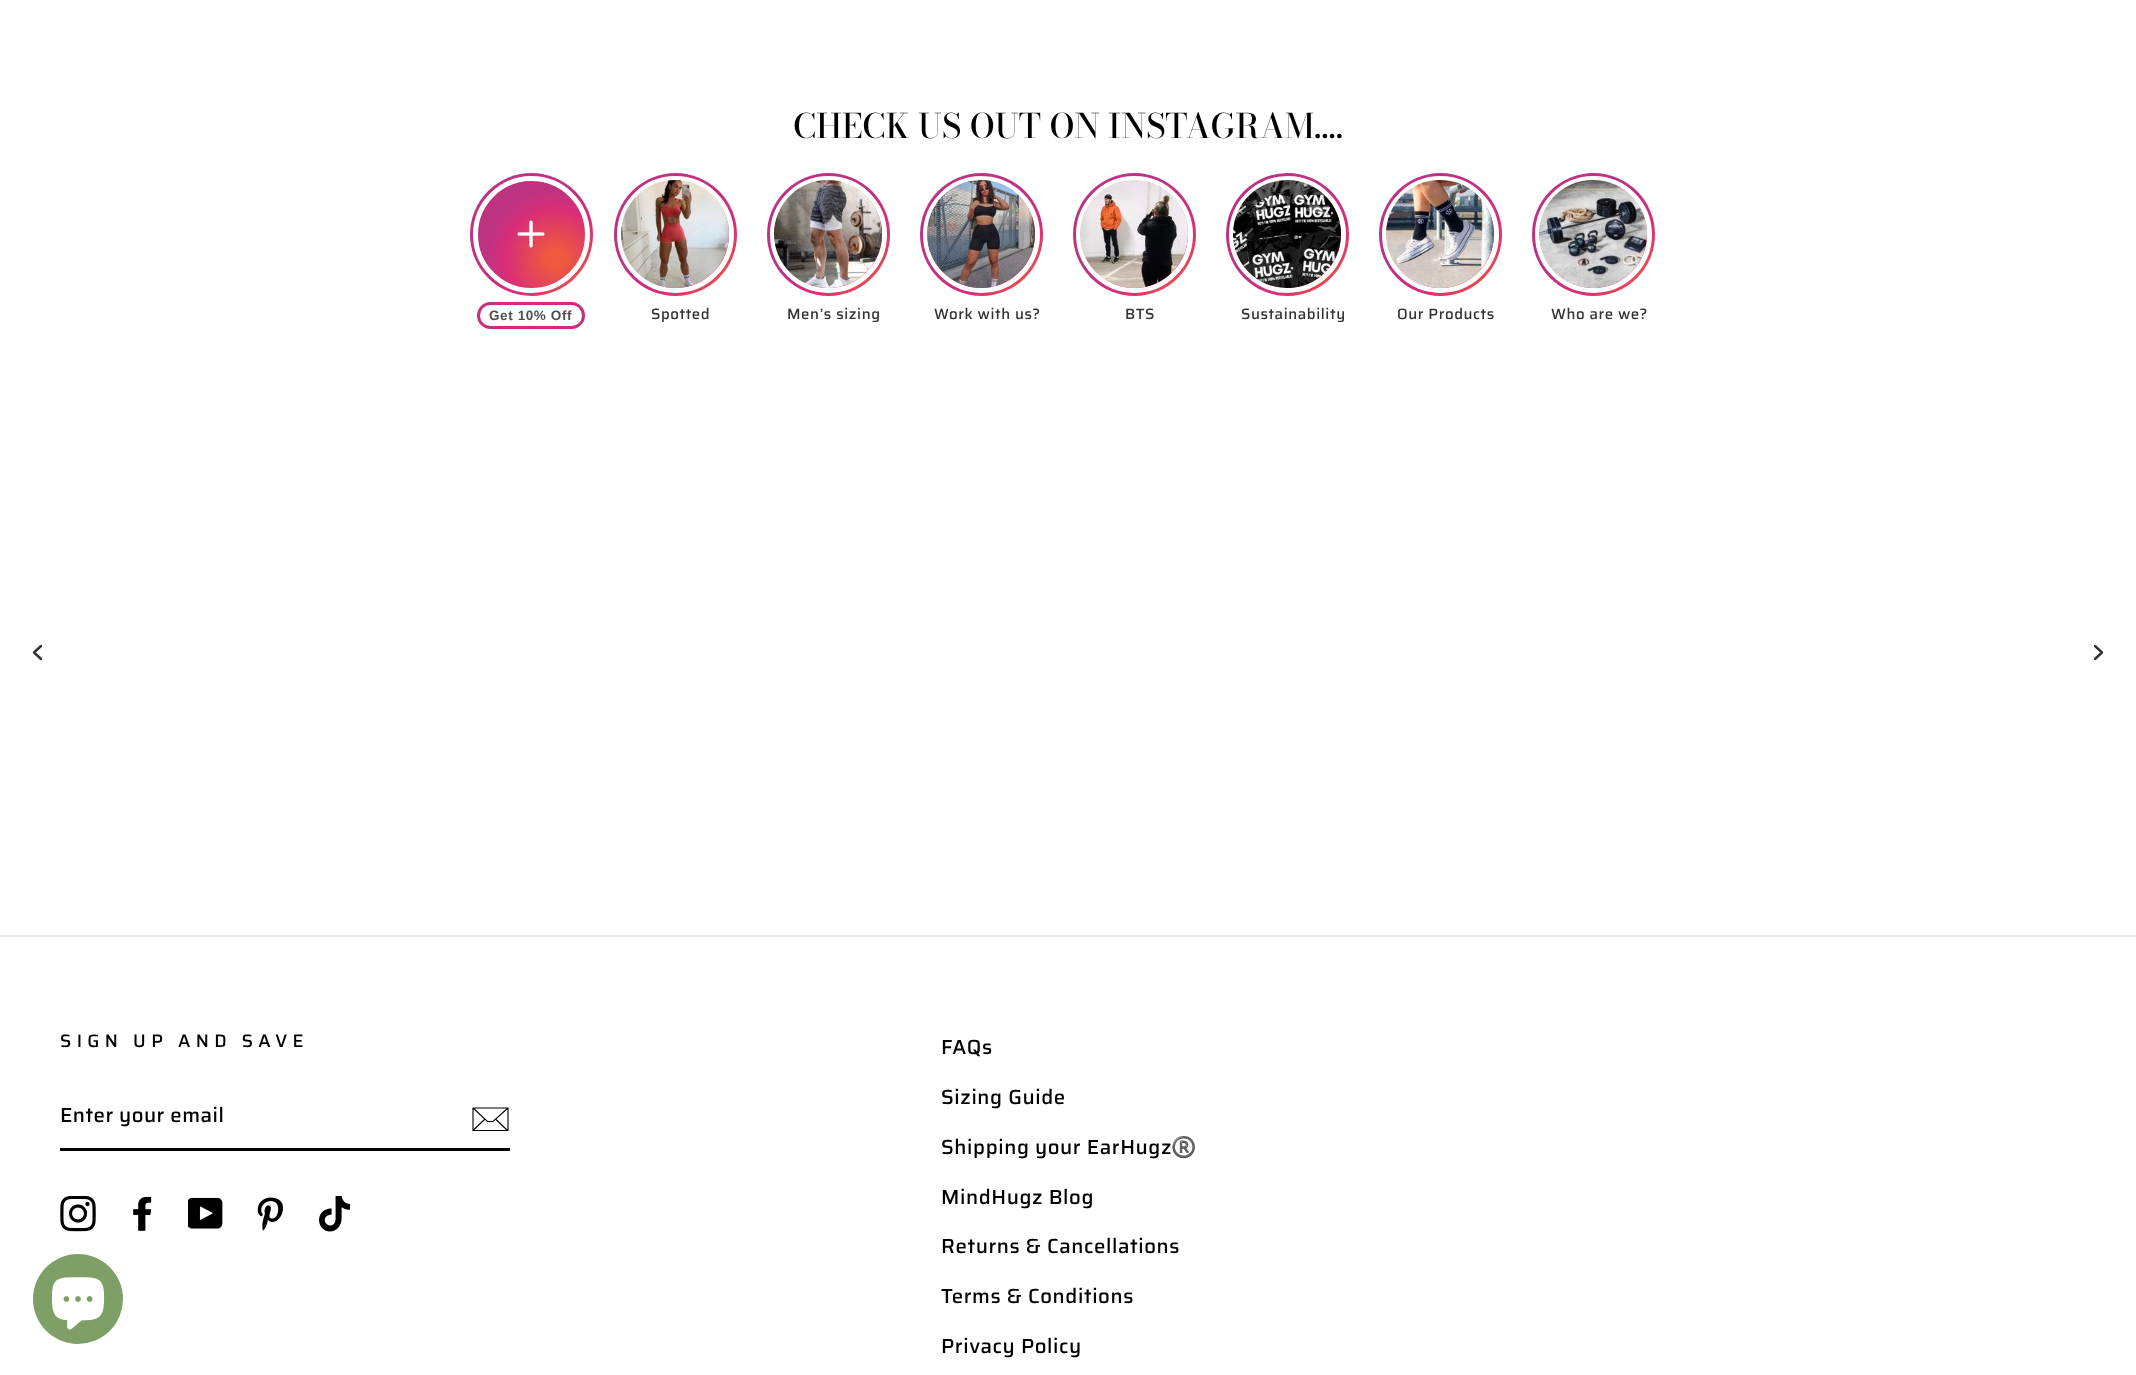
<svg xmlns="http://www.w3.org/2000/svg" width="2136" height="1375">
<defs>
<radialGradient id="g1" gradientUnits="userSpaceOnUse" cx="556" cy="259" r="122"><stop offset="0.08" stop-color="#ee583f"/><stop offset="0.42" stop-color="#d92d77"/><stop offset="0.58" stop-color="#bd3381"/></radialGradient>
<radialGradient id="g2" gradientUnits="userSpaceOnUse" cx="700" cy="259" r="122"><stop offset="0.08" stop-color="#ee583f"/><stop offset="0.42" stop-color="#d92d77"/><stop offset="0.58" stop-color="#bd3381"/></radialGradient>
<radialGradient id="g3" gradientUnits="userSpaceOnUse" cx="853" cy="259" r="122"><stop offset="0.08" stop-color="#ee583f"/><stop offset="0.42" stop-color="#d92d77"/><stop offset="0.58" stop-color="#bd3381"/></radialGradient>
<radialGradient id="g4" gradientUnits="userSpaceOnUse" cx="1006" cy="259" r="122"><stop offset="0.08" stop-color="#ee583f"/><stop offset="0.42" stop-color="#d92d77"/><stop offset="0.58" stop-color="#bd3381"/></radialGradient>
<radialGradient id="g5" gradientUnits="userSpaceOnUse" cx="1159" cy="259" r="122"><stop offset="0.08" stop-color="#ee583f"/><stop offset="0.42" stop-color="#d92d77"/><stop offset="0.58" stop-color="#bd3381"/></radialGradient>
<radialGradient id="g6" gradientUnits="userSpaceOnUse" cx="1312" cy="259" r="122"><stop offset="0.08" stop-color="#ee583f"/><stop offset="0.42" stop-color="#d92d77"/><stop offset="0.58" stop-color="#bd3381"/></radialGradient>
<radialGradient id="g7" gradientUnits="userSpaceOnUse" cx="1465" cy="259" r="122"><stop offset="0.08" stop-color="#ee583f"/><stop offset="0.42" stop-color="#d92d77"/><stop offset="0.58" stop-color="#bd3381"/></radialGradient>
<radialGradient id="g8" gradientUnits="userSpaceOnUse" cx="1618" cy="259" r="122"><stop offset="0.08" stop-color="#ee583f"/><stop offset="0.42" stop-color="#d92d77"/><stop offset="0.58" stop-color="#bd3381"/></radialGradient>
</defs>
<rect width="100%" height="100%" fill="#fff"/>
<text x="793" y="138" style="font-family:Bodoni Moda;font-size:33.6px;font-weight:500;fill:#000">CHECK US OUT ON INSTAGRAM....</text>
<circle cx="531.5" cy="234.5" r="61.5" fill="url(#g1)"/>
<circle cx="531.5" cy="234.5" r="56" fill="none" stroke="#fff" stroke-width="5"/>
<image x="517" y="220" width="28" height="28" href="media/1.png"/>
<rect x="478.5" y="303.5" width="105" height="24" rx="12" fill="none" stroke="#c6317d" stroke-width="3"/>
<text x="489" y="320" style="font-family:Liberation Sans;font-size:13.5px;font-weight:bold;letter-spacing:0.6px;fill:#4e4e4e">Get 10% Off</text>
<circle cx="675.5" cy="234.5" r="61.5" fill="url(#g2)"/>
<circle cx="675.5" cy="234.5" r="56" fill="none" stroke="#fff" stroke-width="5"/>
<image x="621" y="180" width="108" height="108" href="media/2.png"/>
<text x="651" y="319" style="font-family:Saira;font-size:15px;font-weight:500;letter-spacing:0.6px;fill:#333">Spotted</text>
<circle cx="828.5" cy="234.5" r="61.5" fill="url(#g3)"/>
<circle cx="828.5" cy="234.5" r="56" fill="none" stroke="#fff" stroke-width="5"/>
<image x="774" y="180" width="108" height="108" href="media/3.png"/>
<text x="787" y="319" style="font-family:Saira;font-size:15px;font-weight:500;letter-spacing:0.6px;fill:#333">Men’s sizing</text>
<circle cx="981.5" cy="234.5" r="61.5" fill="url(#g4)"/>
<circle cx="981.5" cy="234.5" r="56" fill="none" stroke="#fff" stroke-width="5"/>
<image x="927" y="180" width="108" height="108" href="media/4.png"/>
<text x="934" y="319" style="font-family:Saira;font-size:15px;font-weight:500;letter-spacing:0.6px;fill:#333">Work with us?</text>
<circle cx="1134.5" cy="234.5" r="61.5" fill="url(#g5)"/>
<circle cx="1134.5" cy="234.5" r="56" fill="none" stroke="#fff" stroke-width="5"/>
<image x="1080" y="180" width="108" height="108" href="media/5.png"/>
<text x="1125" y="319" style="font-family:Saira;font-size:15px;font-weight:500;letter-spacing:0.6px;fill:#333">BTS</text>
<circle cx="1287.5" cy="234.5" r="61.5" fill="url(#g6)"/>
<circle cx="1287.5" cy="234.5" r="56" fill="none" stroke="#fff" stroke-width="5"/>
<image x="1233" y="180" width="108" height="108" href="media/6.png"/>
<text x="1241" y="319" style="font-family:Saira;font-size:15px;font-weight:500;letter-spacing:0.6px;fill:#333">Sustainability</text>
<circle cx="1440.5" cy="234.5" r="61.5" fill="url(#g7)"/>
<circle cx="1440.5" cy="234.5" r="56" fill="none" stroke="#fff" stroke-width="5"/>
<image x="1386" y="180" width="108" height="108" href="media/7.png"/>
<text x="1397" y="319" style="font-family:Saira;font-size:15px;font-weight:500;letter-spacing:0.6px;fill:#333">Our Products</text>
<circle cx="1593.5" cy="234.5" r="61.5" fill="url(#g8)"/>
<circle cx="1593.5" cy="234.5" r="56" fill="none" stroke="#fff" stroke-width="5"/>
<image x="1539" y="180" width="108" height="108" href="media/8.png"/>
<text x="1551" y="319" style="font-family:Saira;font-size:15px;font-weight:500;letter-spacing:0.6px;fill:#333">Who are we?</text>
<path d="M41 659l-7-6.5l7-6.5" fill="none" stroke="#333" stroke-width="2.4" stroke-linecap="round" stroke-linejoin="round"/>
<path d="M2095 646l7 6.5l-7 6.5" fill="none" stroke="#333" stroke-width="2.4" stroke-linecap="round" stroke-linejoin="round"/>
<rect y="935" width="2136" height="2" fill="#e8e8e1"/>
<text x="60" y="1047" style="font-family:Saira;font-size:18px;font-weight:500;letter-spacing:5.4px;fill:#000">SIGN UP AND SAVE</text>
<rect x="60" y="1148" width="450" height="3" fill="#000"/>
<text x="60" y="1122" style="font-family:Saira;font-size:20.4px;font-weight:500;letter-spacing:0.5px;fill:#000">Enter your email</text>
<path d="M508 1130.5h-35v-22.5h35zm-35-22.5l14.5 13.5h5.5l15-13.5m-23 11l-11.5 11m34 .5l-12-11.5" fill="none" stroke="#000" stroke-width="1.1"/>
<image x="60" y="1196" width="36" height="36" href="media/9.png"/>
<image x="133" y="1196" width="19" height="35" href="media/10.png"/>
<image x="188" y="1197" width="35" height="32" href="media/11.png"/>
<image x="257" y="1197" width="26" height="34" href="media/12.png"/>
<image x="319" y="1196" width="31" height="36" href="media/13.png"/>
<text x="941" y="1054" style="font-family:Saira;font-size:20.4px;font-weight:500;letter-spacing:0.6px;fill:#000">FAQs</text>
<text x="941" y="1104" style="font-family:Saira;font-size:20.4px;font-weight:500;letter-spacing:0.6px;fill:#000">Sizing Guide</text>
<text x="941" y="1154" style="font-family:Saira;font-size:20.4px;font-weight:500;letter-spacing:0.6px;fill:#000">Shipping your EarHugz</text>
<text x="1171" y="1154" style="font-family:Noto Color Emoji;font-size:20.4px;letter-spacing:0.6px;fill:#000">®️</text>
<text x="941" y="1204" style="font-family:Saira;font-size:20.4px;font-weight:500;letter-spacing:0.6px;fill:#000">MindHugz Blog</text>
<text x="941" y="1253" style="font-family:Saira;font-size:20.4px;font-weight:500;letter-spacing:0.6px;fill:#000">Returns &amp; Cancellations</text>
<text x="941" y="1303" style="font-family:Saira;font-size:20.4px;font-weight:500;letter-spacing:0.6px;fill:#000">Terms &amp; Conditions</text>
<text x="941" y="1353" style="font-family:Saira;font-size:20.4px;font-weight:500;letter-spacing:0.6px;fill:#000">Privacy Policy</text>
<circle cx="78" cy="1299" r="45" fill="#7e9f65"/>
<image x="51" y="1277" width="54" height="53" href="media/14.png"/>
</svg>
